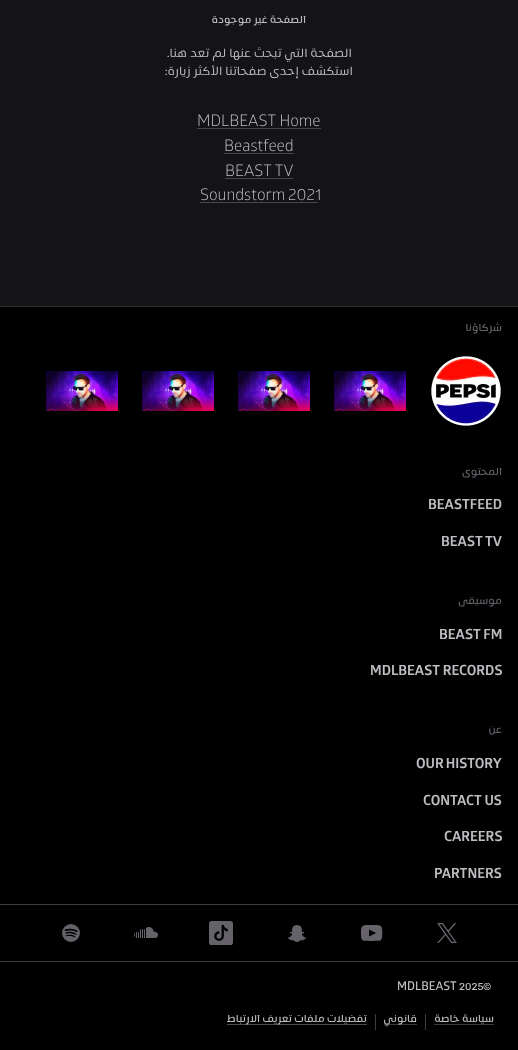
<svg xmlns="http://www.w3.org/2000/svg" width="518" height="1050">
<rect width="100%" height="100%" fill="#141316"/>
<text x="306" y="23" style="font-family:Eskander;font-size:12px;font-weight:500;direction:rtl;fill:#bfbdc2">الصفحة غير موجودة</text>
<text x="352" y="57" style="font-family:Eskander;font-size:14px;direction:rtl;fill:#bfbdc2">الصفحة التي تبحث عنها لم تعد هنا.</text>
<text x="353" y="75" style="font-family:Eskander;font-size:14px;direction:rtl;fill:#bfbdc2">استكشف إحدى صفحاتنا الأكثر زيارة:</text>
<text x="197" y="126" style="font-family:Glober;font-size:16px;fill:#bfbdc2">MDLBEAST Home</text>
<rect x="197" y="128" width="124" height="1" fill="#47464a"/>
<text x="224" y="151" style="font-family:Glober;font-size:16px;fill:#bfbdc2">Beastfeed</text>
<rect x="224" y="153" width="70" height="1" fill="#47464a"/>
<text x="225" y="176" style="font-family:Glober;font-size:16px;fill:#bfbdc2">BEAST TV</text>
<rect x="225" y="178" width="68" height="1" fill="#47464a"/>
<text x="200" y="200" word-spacing="-1" style="font-family:Glober;font-size:16px;fill:#bfbdc2">Soundstorm 2021</text>
<rect x="200" y="202" width="118" height="1" fill="#47464a"/>
<rect y="307" width="518" height="743" fill="#000"/>
<rect y="306" width="518" height="1" fill="#2d2b31"/>
<text x="502" y="331" style="font-family:Eskander;font-size:12px;font-weight:500;direction:rtl;fill:#65626a">شركاؤنا</text>
<image x="431" y="355" width="70" height="71" href="media/1.png"/>
<image x="334" y="371" width="72" height="40" href="media/2.png"/>
<image x="238" y="371" width="72" height="40" href="media/3.png"/>
<image x="142" y="371" width="72" height="40" href="media/4.png"/>
<image x="46" y="371" width="72" height="40" href="media/2.png"/>
<text x="502" y="475" style="font-family:Eskander;font-size:12px;font-weight:500;direction:rtl;fill:#65626a">المحتوى</text>
<text x="428" y="509" style="font-family:Glober;font-size:14px;font-weight:bold;fill:#bfbdc2">BEASTFEED</text>
<text x="441" y="546" style="font-family:Glober;font-size:14px;font-weight:bold;fill:#bfbdc2">BEAST TV</text>
<text x="502" y="604" style="font-family:Eskander;font-size:12px;font-weight:500;direction:rtl;fill:#65626a">موسيقى</text>
<text x="439" y="639" style="font-family:Glober;font-size:14px;font-weight:bold;fill:#bfbdc2">BEAST FM</text>
<text x="370" y="675" style="font-family:Glober;font-size:14px;font-weight:bold;fill:#bfbdc2">MDLBEAST RECORDS</text>
<text x="502" y="733" style="font-family:Eskander;font-size:12px;font-weight:500;direction:rtl;fill:#65626a">عن</text>
<text x="416" y="768" word-spacing="-1" style="font-family:Glober;font-size:14px;font-weight:bold;fill:#bfbdc2">OUR HISTORY</text>
<text x="423" y="805" style="font-family:Glober;font-size:14px;font-weight:bold;fill:#bfbdc2">CONTACT US</text>
<text x="444" y="841" style="font-family:Glober;font-size:14px;font-weight:bold;fill:#bfbdc2">CAREERS</text>
<text x="434" y="878" style="font-family:Glober;font-size:14px;font-weight:bold;fill:#bfbdc2">PARTNERS</text>
<rect y="904" width="518" height="1" fill="#3f3d42"/>
<image x="437" y="923" width="20" height="20" href="media/5.png"/>
<image x="361" y="925" width="22" height="16" href="media/6.png"/>
<image x="288" y="925" width="18" height="17" href="media/7.png"/>
<image x="209" y="921" width="24" height="24" href="media/8.png"/>
<image x="134" y="927" width="24" height="11" href="media/9.png"/>
<image x="62" y="924" width="18" height="18" href="media/10.png"/>
<rect y="961" width="518" height="1" fill="#3f3d42"/>
<text x="483" y="990" style="font-family:Eskander;font-size:12px;font-weight:500;fill:#bfbdc2">©</text>
<text x="459" y="990" style="font-family:Eskander;font-size:12px;font-weight:500;fill:#bfbdc2">2025</text>
<text x="397" y="990" style="font-family:Glober;font-size:12px;font-weight:600;fill:#bfbdc2">MDLBEAST</text>
<text x="494" y="1022" style="font-family:Eskander;font-size:12px;font-weight:500;direction:rtl;fill:#bfbdc2">سياسة خاصة</text>
<rect x="434" y="1024" width="60" height="1" fill="#39393a"/>
<rect x="425" y="1014" width="1" height="16" fill="#3f3d42"/>
<rect x="384" y="1024" width="33" height="1" fill="#39393a"/>
<text x="417" y="1022" style="font-family:Eskander;font-size:12px;font-weight:500;direction:rtl;fill:#bfbdc2">قانوني</text>
<rect x="375" y="1014" width="1" height="16" fill="#3f3d42"/>
<rect x="227" y="1024" width="140" height="1" fill="#4d4d4d"/>
<text x="367" y="1022" style="font-family:Eskander;font-size:12px;font-weight:500;direction:rtl;fill:#bfbdc2">تفضيلات ملفات تعريف الارتباط</text>
</svg>
